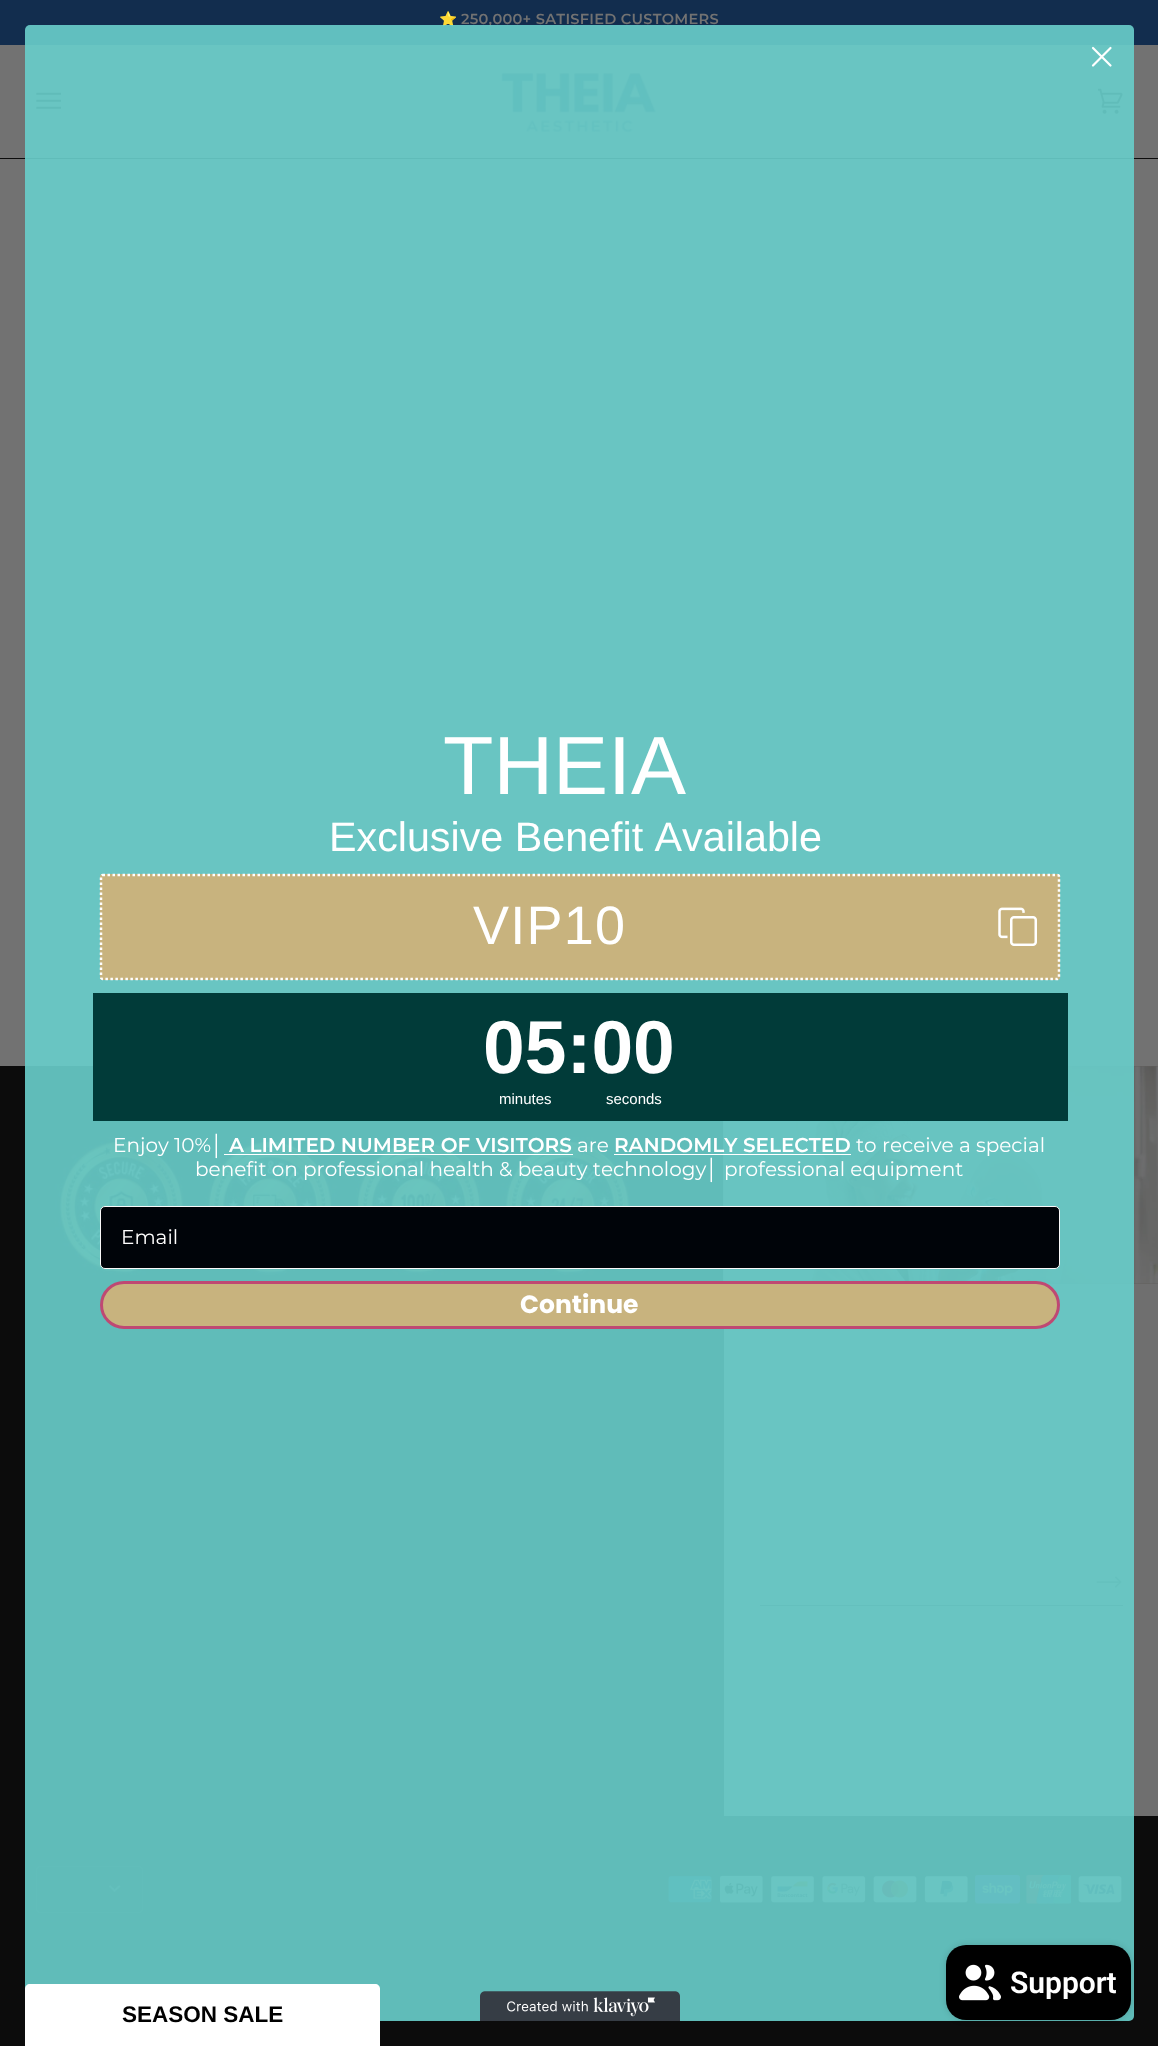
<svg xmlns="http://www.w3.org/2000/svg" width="1158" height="2046">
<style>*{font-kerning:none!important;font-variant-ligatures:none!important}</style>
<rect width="100%" height="100%" fill="#727272"/>
<rect width="1158" height="45" fill="#122d4e"/>
<text x="439" y="24" style="font-family:Noto Color Emoji;font-size:14.6px;letter-spacing:0.25px;fill:#727272">⭐</text>
<text x="461" y="24" style="font-family:Montserrat;font-size:14.6px;font-weight:600;letter-spacing:0.25px;fill:#727272">250,000+ SATISFIED CUSTOMERS</text>
<rect y="158" width="1158" height="1" fill="#0c0c0c"/>
<image x="36" y="92" width="25" height="17" href="media/1.png"/>
<image x="499" y="70" width="159" height="66" href="media/2.png"/>
<image x="1098" y="88" width="25" height="26" href="media/3.png"/>
<rect y="1066" width="1158" height="980" fill="#0c0c0c"/>
<image x="55" y="1137" width="576" height="138" href="media/6.png"/>
<rect x="724" y="1284" width="434" height="532" fill="#6f6f6f"/>
<rect x="723" y="1066" width="435" height="218" fill="#605e5c"/>
<image x="724" y="1066" width="434" height="218" href="media/7.png"/>
<rect x="760" y="1605" width="363" height="1" fill="#3a3a3a"/>
<image x="1096" y="1576" width="26" height="12" href="media/8.png"/>
<rect x="36.5" y="1866.5" width="106" height="46" rx="3.5" fill="none" stroke="#121212"/>
<image x="109" y="1885" width="12" height="7" href="media/9.png"/>
<image x="668" y="1876" width="44" height="27" href="media/10.png"/>
<image x="720" y="1875" width="43" height="28" href="media/11.png"/>
<image x="771" y="1876" width="43" height="27" href="media/12.png"/>
<image x="822" y="1876" width="44" height="27" href="media/13.png"/>
<image x="873" y="1876" width="44" height="27" href="media/14.png"/>
<image x="924" y="1876" width="44" height="27" href="media/15.png"/>
<image x="975" y="1875" width="45" height="29" href="media/16.png"/>
<image x="1026" y="1875" width="45" height="29" href="media/17.png"/>
<image x="1078" y="1876" width="44" height="27" href="media/18.png"/>
<rect x="25" y="25" width="1109" height="1996" rx="5" fill="#68ccc9eb"/>
<path d="M1093 48l17.5 17.5m-17.5 0l17.5-17.5z" fill="none" stroke="#fff" stroke-width="2.2" stroke-linecap="round" stroke-linejoin="round"/>
<text x="443" y="794" style="font-family:Liberation Sans;font-size:82.5px;fill:#fff">THEIA</text>
<text x="329" y="851" style="font-family:Liberation Sans;font-size:41.25px;fill:#fff">Exclusive Benefit Available</text>
<rect x="100" y="874" width="960" height="106" rx="2.5" fill="#c8b37e"/>
<path d="M102.5 875h955c.5 0 1.5 .5 1.5 1v101.5c0 .5-1 1.5-1.5 1.5h-955c-.5 0-1.5-1-1.5-1.5v-101.5c0-.5 1-1 1.5-1z" fill="none" stroke="#fff" stroke-width="2.5" stroke-dasharray="2.5 2.5"/>
<text x="473" y="944" style="font-family:Liberation Sans;font-size:54px;letter-spacing:1.25px;fill:#fff">VIP10</text>
<image x="998" y="907" width="39" height="39" href="media/4.png"/>
<rect x="93" y="993" width="975" height="128" fill="#013b39"/>
<text x="483" y="1073" style="font-family:Liberation Sans;font-size:75px;font-weight:bold;fill:#fff">05:00</text>
<text x="499" y="1104" style="font-family:Liberation Sans;font-size:15px;fill:#fff">minutes</text>
<text x="606" y="1104" style="font-family:Liberation Sans;font-size:15px;fill:#fff">seconds</text>
<text x="113" y="1152" style="font-family:Montserrat;font-size:20px;font-weight:100;fill:#fff">Enjoy 10%</text>
<text x="211" y="1152" style="font-family:Liberation Sans;font-size:20px;fill:#fff">│</text>
<text x="229" y="1152" style="font-family:Montserrat;font-size:20px;font-weight:600;fill:#fff">A LIMITED NUMBER OF VISITORS</text>
<rect x="224" y="1154" width="349" height="1" fill="#fff"/>
<text x="577" y="1152" style="font-family:Montserrat;font-size:20px;font-weight:100;fill:#fff">are</text>
<text x="614" y="1152" style="font-family:Montserrat;font-size:20px;font-weight:600;fill:#fff">RANDOMLY SELECTED</text>
<rect x="614" y="1154" width="237" height="1" fill="#fff"/>
<text x="856" y="1152" style="font-family:Montserrat;font-size:20px;font-weight:100;fill:#fff">to receive a special</text>
<text x="195" y="1176" style="font-family:Montserrat;font-size:20px;font-weight:100;fill:#fff">benefit on professional health &amp; beauty technology</text>
<text x="706" y="1176" style="font-family:Liberation Sans;font-size:20px;fill:#fff">│</text>
<text x="724" y="1176" style="font-family:Montserrat;font-size:20px;font-weight:100;fill:#fff">professional equipment</text>
<rect x="100.5" y="1206.5" width="959" height="62" rx="4.5" fill="#000409" stroke="#f9f9f9"/>
<text x="121" y="1244" style="font-family:Montserrat;font-size:20px;font-weight:100;fill:#fff">Email</text>
<rect x="101.5" y="1282.5" width="957" height="45" rx="22.5" fill="#c8b37e" stroke="#bf4973" stroke-width="3"/>
<text x="520" y="1313" style="font-family:Poppins;font-size:25px;font-weight:bold;fill:#fff">Continue</text>
<image x="480" y="1991" width="200" height="30" href="media/5.png"/>
<rect x="946" y="1945" width="185" height="75" rx="20" fill="#00000026" filter="blur(3px)"/>
<rect x="946" y="1945" width="185" height="75" rx="20" fill="#000"/>
<image x="959" y="1964" width="42" height="37" href="media/19.png"/>
<text x="1010" y="1993" style="font-family:Roboto;font-size:30px;font-weight:600;fill:#fff">Support</text>
<path d="M30 1984h345c3 0 5 2 5 5v57h-355v-57c0-3 2-5 5-5z" fill="#fff"/>
<text x="122" y="2022" style="font-family:Liberation Sans;font-size:22.5px;font-weight:bold;fill:#000">SEASON SALE</text>
</svg>
